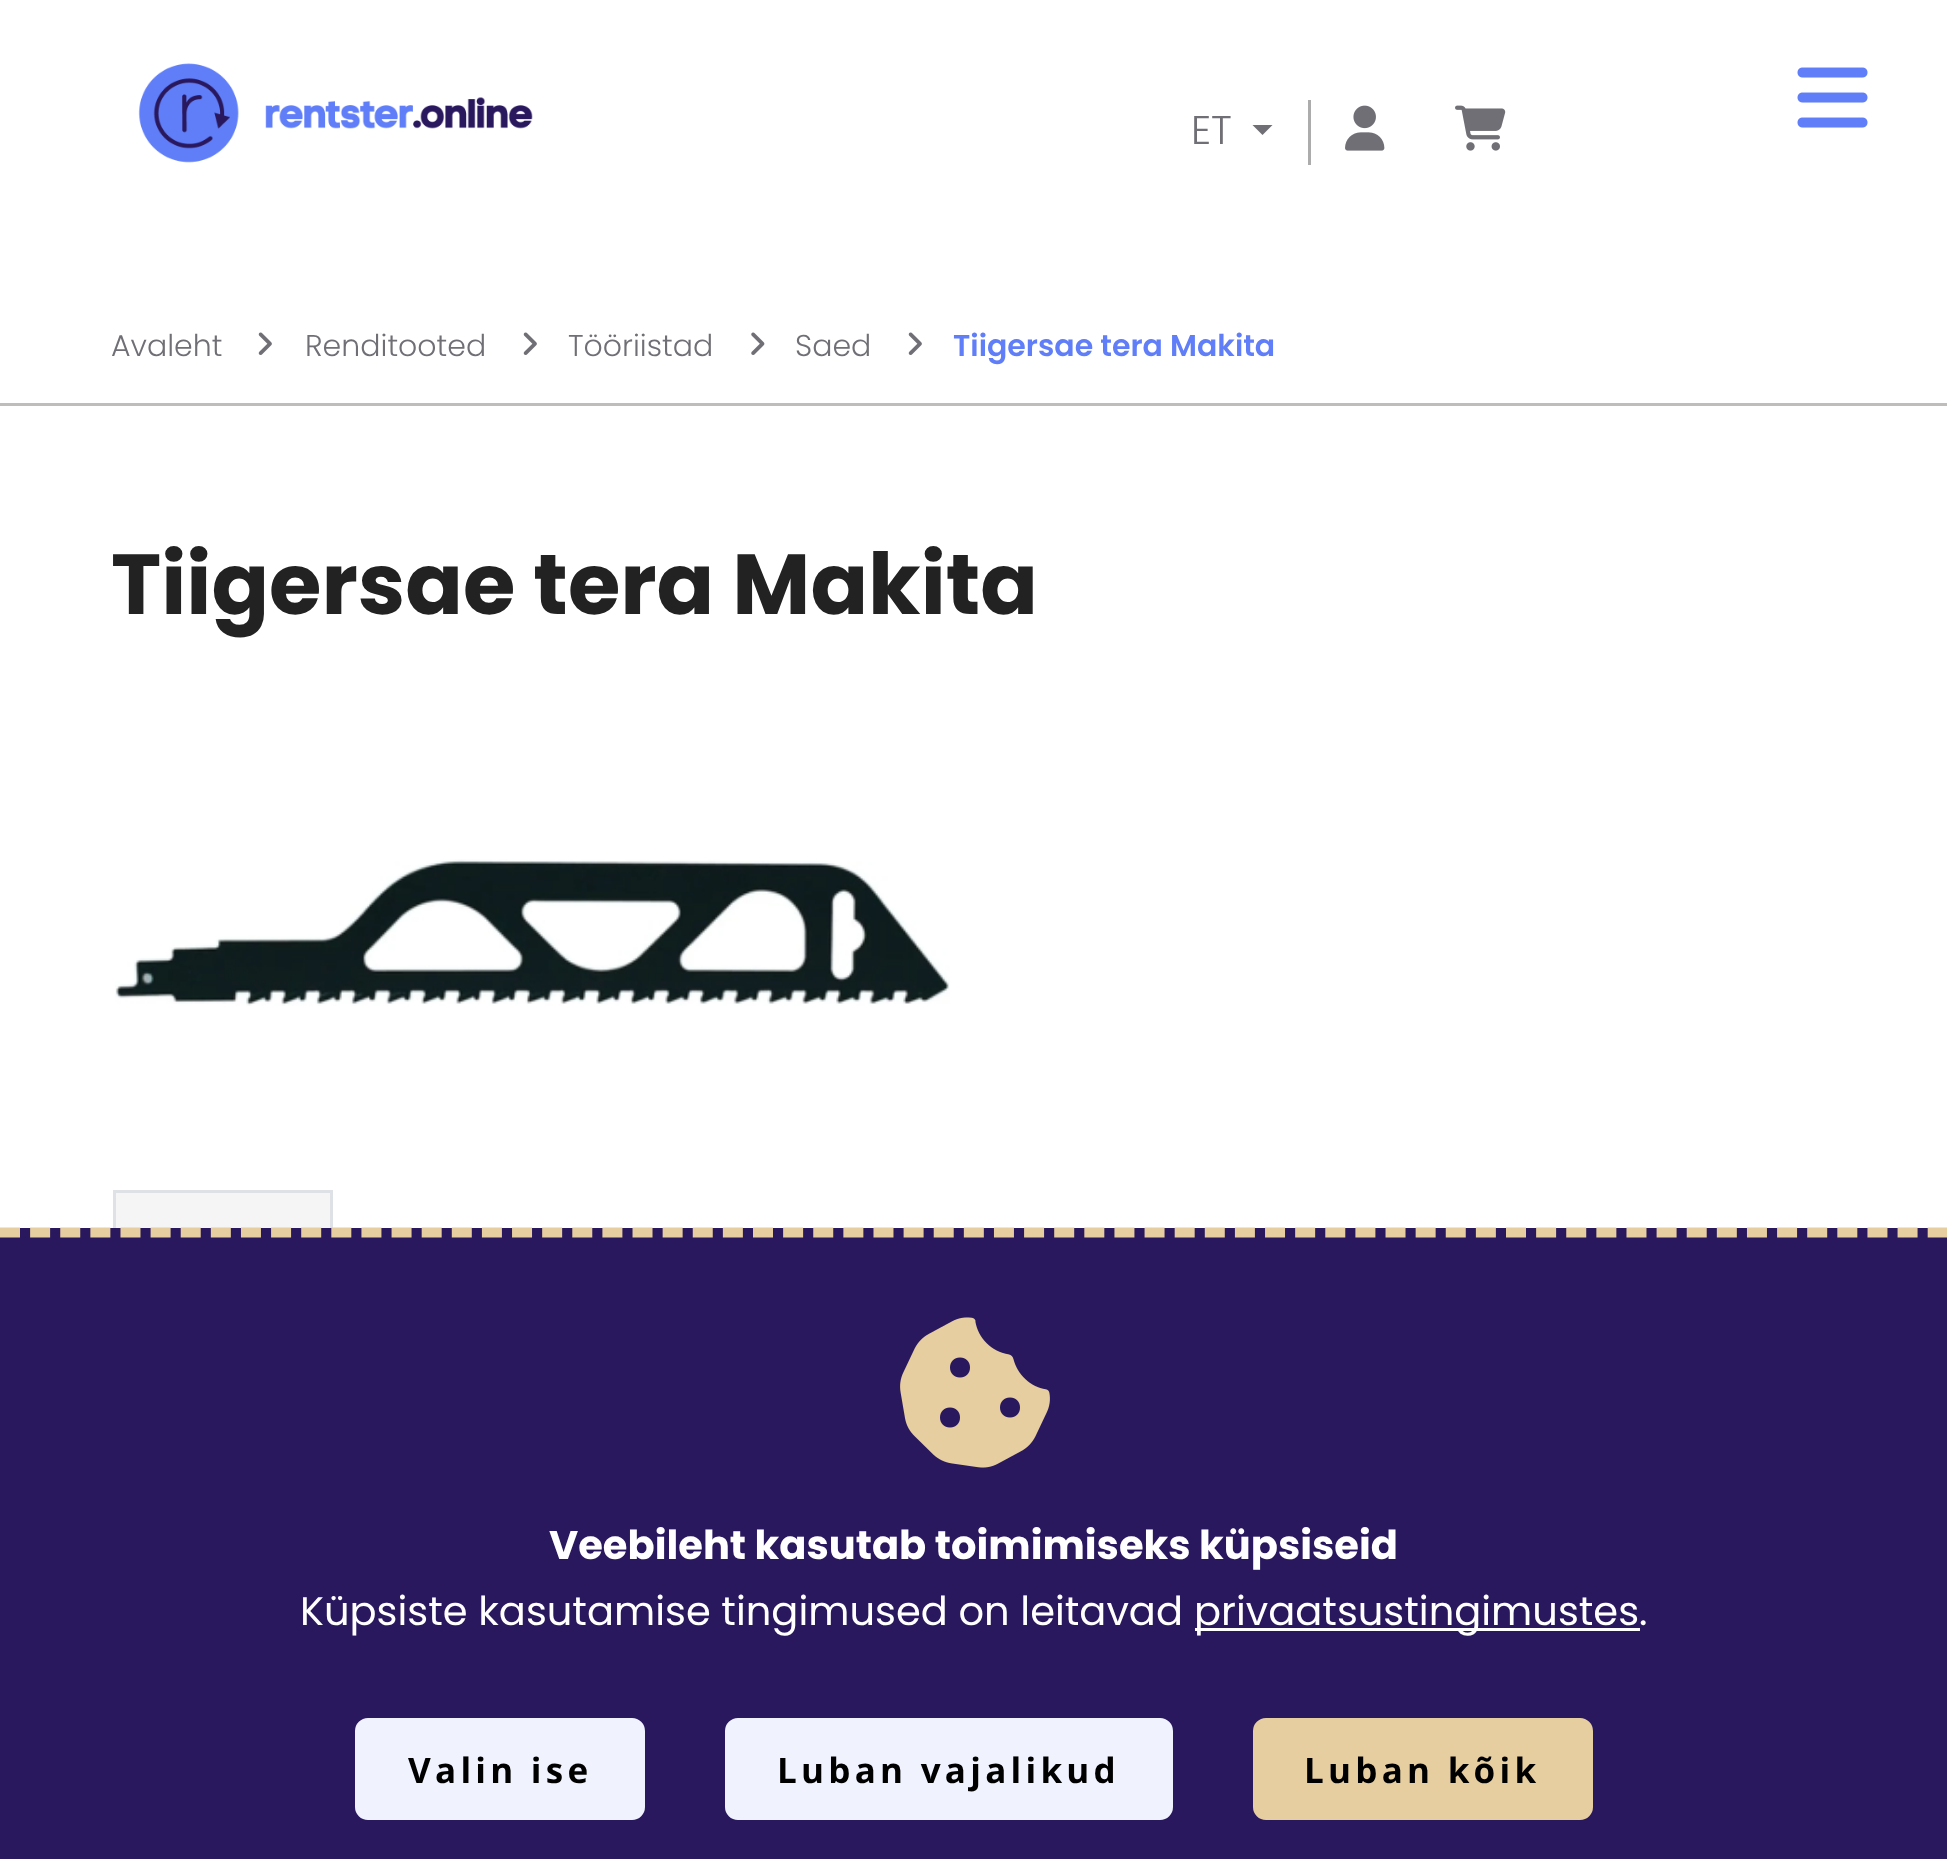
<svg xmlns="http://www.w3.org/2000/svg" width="1947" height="1859">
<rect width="100%" height="100%" fill="#fff"/>
<image x="138" y="63" width="395" height="100" href="media/1.png"/>
<rect x="1308" y="100" width="3" height="65" fill="#acacac"/>
<text x="1191" y="144" style="font-family:Poppins;font-size:40px;font-weight:300;fill:#706f75">ET</text>
<path d="M1252.5 125h20l-10 10z" fill="#706f75"/>
<image x="1345" y="105" width="40" height="46" href="media/2.png"/>
<image x="1455" y="105" width="51" height="46" href="media/3.png"/>
<image x="1797" y="67" width="71" height="61" href="media/4.png"/>
<rect y="403" width="1947" height="3" fill="#bfbcbc"/>
<text x="111" y="356" style="font-family:Poppins;font-size:30px;font-weight:300;fill:#706f75">Avaleht</text>
<image x="258" y="332" width="14" height="23" href="media/5.png"/>
<text x="305" y="356" style="font-family:Poppins;font-size:30px;font-weight:300;fill:#706f75">Renditooted</text>
<image x="523" y="332" width="14" height="23" href="media/5.png"/>
<text x="568" y="356" style="font-family:Poppins;font-size:30px;font-weight:300;fill:#706f75">Tööriistad</text>
<image x="751" y="332" width="14" height="23" href="media/6.png"/>
<text x="795" y="356" style="font-family:Poppins;font-size:30px;font-weight:300;fill:#706f75">Saed</text>
<image x="908" y="332" width="14" height="23" href="media/5.png"/>
<text x="953" y="356" style="font-family:Poppins;font-size:30px;font-weight:600;fill:#607ef8">Tiigersae tera Makita</text>
<text x="111" y="614" style="font-family:Poppins;font-size:85px;font-weight:bold;fill:#222">Tiigersae tera Makita</text>
<image x="115" y="859" width="835" height="147" href="media/7.png"/>
<rect x="116" y="1193" width="214" height="35" fill="#f5f5f5"/>
<rect x="114.5" y="1191.5" width="217" height="92" fill="none" stroke="#dee2e6" stroke-width="3"/>
<rect y="1228" width="1947" height="631" fill="#29185d"/>
<path d="M0 1232.5h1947.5" fill="none" stroke="#e6cea0" stroke-width="10" stroke-dasharray="20 10.12"/>
<image x="900" y="1317" width="150" height="151" href="media/8.png"/>
<text x="549" y="1559" style="font-family:Poppins;font-size:40px;font-weight:bold;fill:#fff">Veebileht kasutab toimimiseks küpsiseid</text>
<text x="300" y="1625" style="font-family:Poppins;font-size:40px;fill:#fff">Küpsiste kasutamise tingimused on leitavad</text>
<rect x="1195" y="1628" width="445" height="3" fill="#fff"/>
<text x="1194" y="1625" style="font-family:Poppins;font-size:40px;fill:#fff">privaatsustingimustes.</text>
<rect x="356.5" y="1719.5" width="287" height="99" rx="11.5" fill="#f0f3fd" stroke="#f0f3fd" stroke-width="3"/>
<text x="408" y="1783" style="font-family:Open Sans;font-size:35px;font-weight:bold;letter-spacing:4.25px;fill:#000">Valin ise</text>
<rect x="726.5" y="1719.5" width="445" height="99" rx="11.5" fill="#f0f3fd" stroke="#f0f3fd" stroke-width="3"/>
<text x="777" y="1783" style="font-family:Open Sans;font-size:35px;font-weight:bold;letter-spacing:4.25px;fill:#000">Luban vajalikud</text>
<rect x="1254.5" y="1719.5" width="337" height="99" rx="11.5" fill="#e6cea0" stroke="#e6cea0" stroke-width="3"/>
<text x="1304" y="1783" style="font-family:Open Sans;font-size:35px;font-weight:bold;letter-spacing:4.25px;fill:#000">Luban kõik</text>
</svg>
